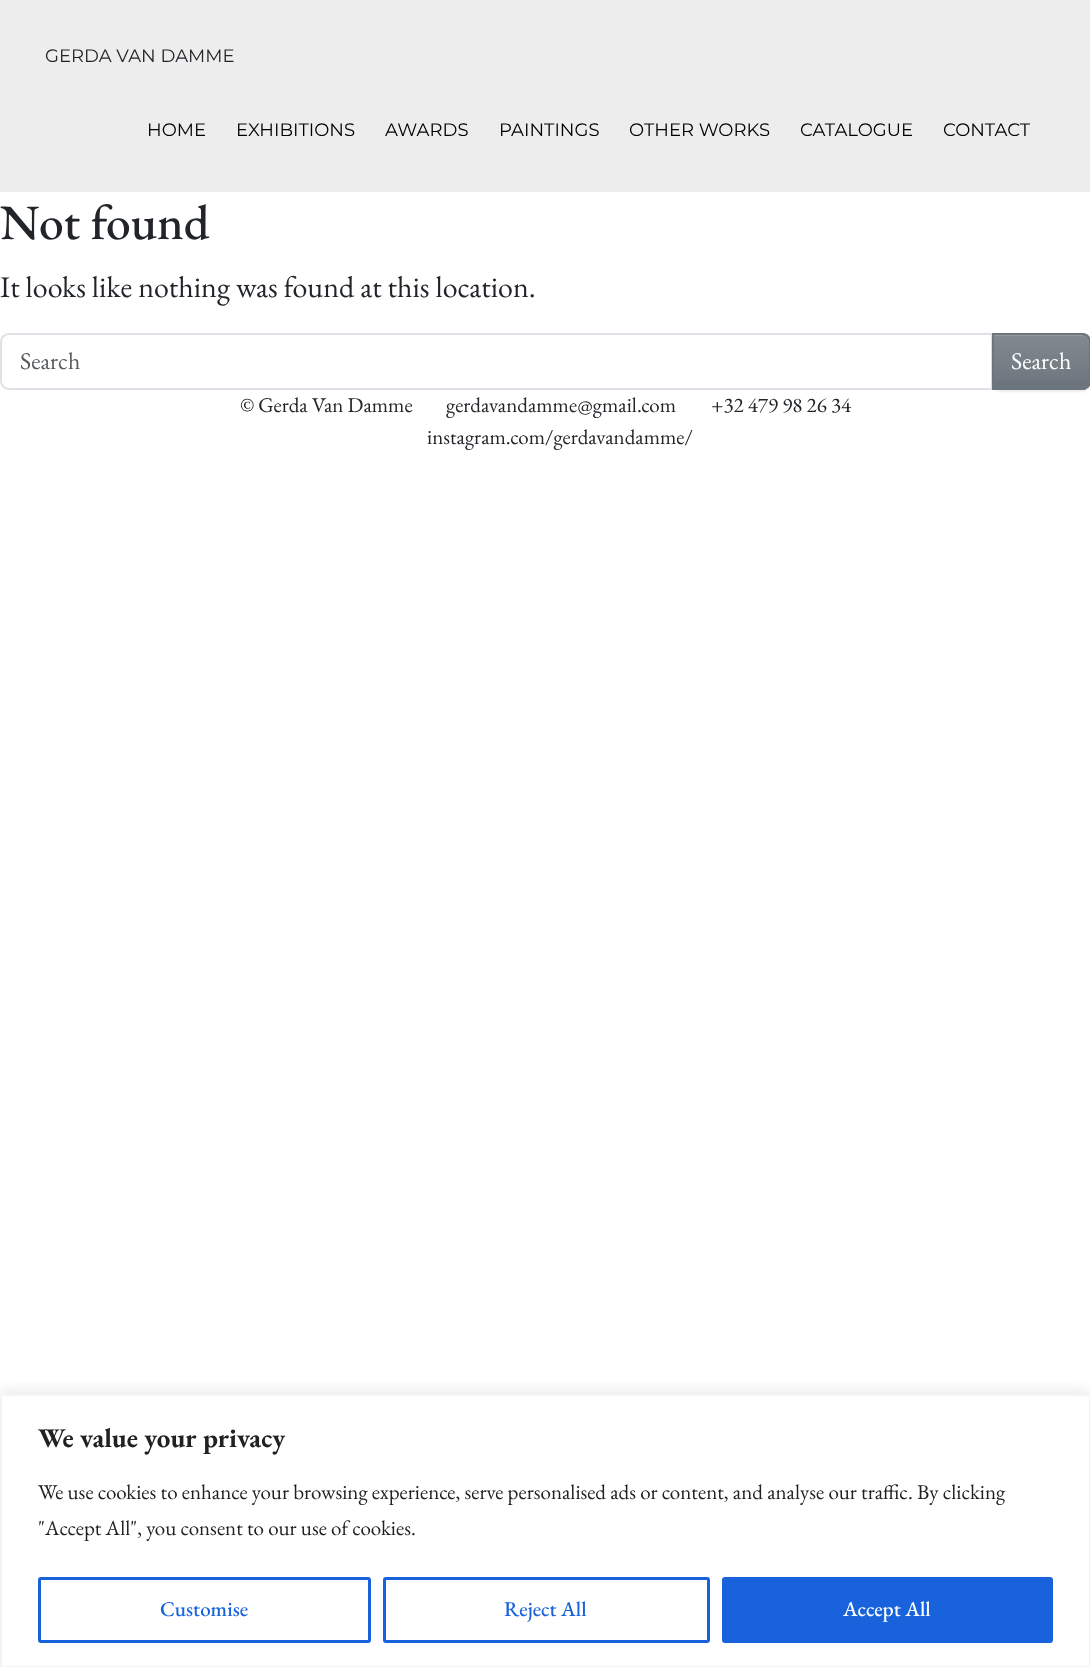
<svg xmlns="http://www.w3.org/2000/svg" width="1090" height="1667">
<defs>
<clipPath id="clip1"><path d="M992 333h90c5 0 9 4 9 9v39c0 5-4 9-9 9h-90z"/></clipPath>
<linearGradient id="g1" gradientUnits="userSpaceOnUse" x1="1041" y1="335" x2="1041" y2="389"><stop offset="0" stop-color="#fff" stop-opacity="0.15"/><stop offset="1" stop-color="#fff" stop-opacity="0"/></linearGradient>
<clipPath id="clip2"><rect x="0" y="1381" width="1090" height="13"/></clipPath>
</defs>
<rect width="100%" height="100%" fill="#fff"/>
<rect width="1090" height="192" fill="#ededed"/>
<text x="45" y="62" style="font-family:Montserrat;font-size:18px;fill:#212529">GERDA VAN DAMME</text>
<text x="147" y="136" style="font-family:Montserrat;font-size:18px;fill:#000">HOME</text>
<text x="236" y="136" style="font-family:Montserrat;font-size:18px;fill:#000">EXHIBITIONS</text>
<text x="385" y="136" style="font-family:Montserrat;font-size:18px;fill:#000">AWARDS</text>
<text x="499" y="136" style="font-family:Montserrat;font-size:18px;fill:#000">PAINTINGS</text>
<text x="629" y="136" style="font-family:Montserrat;font-size:18px;fill:#000">OTHER WORKS</text>
<text x="800" y="136" style="font-family:Montserrat;font-size:18px;fill:#000">CATALOGUE</text>
<text x="943" y="136" style="font-family:Montserrat;font-size:18px;fill:#000">CONTACT</text>
<text x="0" y="239" style="font-family:EB Garamond;font-size:49.5px;font-weight:500;fill:#212529">Not found</text>
<text x="0" y="297" style="font-family:EB Garamond;font-size:30px;fill:#212529">It looks like nothing was found at this location.</text>
<path d="M9 334h983v55h-983c-4.5 0-8-3.5-8-8v-39c0-4.5 3.5-8 8-8z" fill="none" stroke="#dee2e6" stroke-width="2"/>
<text x="20" y="369" style="font-family:EB Garamond;font-size:24px;fill:#595c5f">Search</text>
<rect x="992" y="335" width="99" height="57" rx="9" fill="#00000012" filter="blur(1px)"/>
<path d="M992 333h90c5 0 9 4 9 9v39c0 5-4 9-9 9h-90z" fill="#6c757d"/>
<g clip-path="url(#clip1)">
<rect x="994" y="335" width="96" height="46" fill="url(#g1)"/>
</g>
<path d="M993 336h89c4 0 7 3 7 8v-1c0-4-4-8-8-8h-88z" fill="#959ba1"/>
<path d="M993 334h89c4.5 0 8 3.5 8 8v39c0 4.5-3.5 8-8 8h-89z" fill="none" stroke="#6c757d" stroke-width="2"/>
<text x="1011" y="369" style="font-family:EB Garamond;font-size:24px;fill:#fff">Search</text>
<text x="240" y="412" style="font-family:EB Garamond;font-size:21px;fill:#212529">© Gerda Van Damme</text>
<text x="446" y="412" style="font-family:EB Garamond;font-size:21px;fill:#212529">gerdavandamme@gmail.com</text>
<text x="711" y="412" style="font-family:EB Garamond;font-size:21px;fill:#212529">+32 479 98 26 34</text>
<text x="427" y="444" style="font-family:EB Garamond;font-size:21px;fill:#212529">instagram.com/gerdavandamme/</text>
<g clip-path="url(#clip2)">
<rect y="1392" width="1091" height="275" fill="#acabab4d" filter="blur(7.5px)"/>
</g>
<rect x="1" y="1395" width="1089" height="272" fill="none" stroke="#f4f4f4" stroke-width="2"/>
<text x="38" y="1447" style="font-family:EB Garamond;font-size:27px;font-weight:bold;fill:#212121">We value your privacy</text>
<text x="38" y="1499" style="font-family:EB Garamond;font-size:21px;fill:#212121">We use cookies to enhance your browsing experience, serve personalised ads or content, and analyse our traffic. By clicking</text>
<text x="38" y="1535" style="font-family:EB Garamond;font-size:21px;fill:#212121">"Accept All", you consent to our use of cookies.</text>
<rect x="39.5" y="1578.5" width="330" height="63" rx="1.5" fill="none" stroke="#1863dc" stroke-width="3"/>
<text x="160" y="1616" style="font-family:EB Garamond;font-size:21px;font-weight:500;fill:#1863dc">Customise</text>
<rect x="384.5" y="1578.5" width="324" height="63" rx="1.5" fill="none" stroke="#1863dc" stroke-width="3"/>
<text x="504" y="1616" style="font-family:EB Garamond;font-size:21px;font-weight:500;fill:#1863dc">Reject All</text>
<rect x="723.5" y="1578.5" width="328" height="63" rx="1.5" fill="#1863dc" stroke="#1863dc" stroke-width="3"/>
<text x="843" y="1616" style="font-family:EB Garamond;font-size:21px;font-weight:500;fill:#fff">Accept All</text>
</svg>
